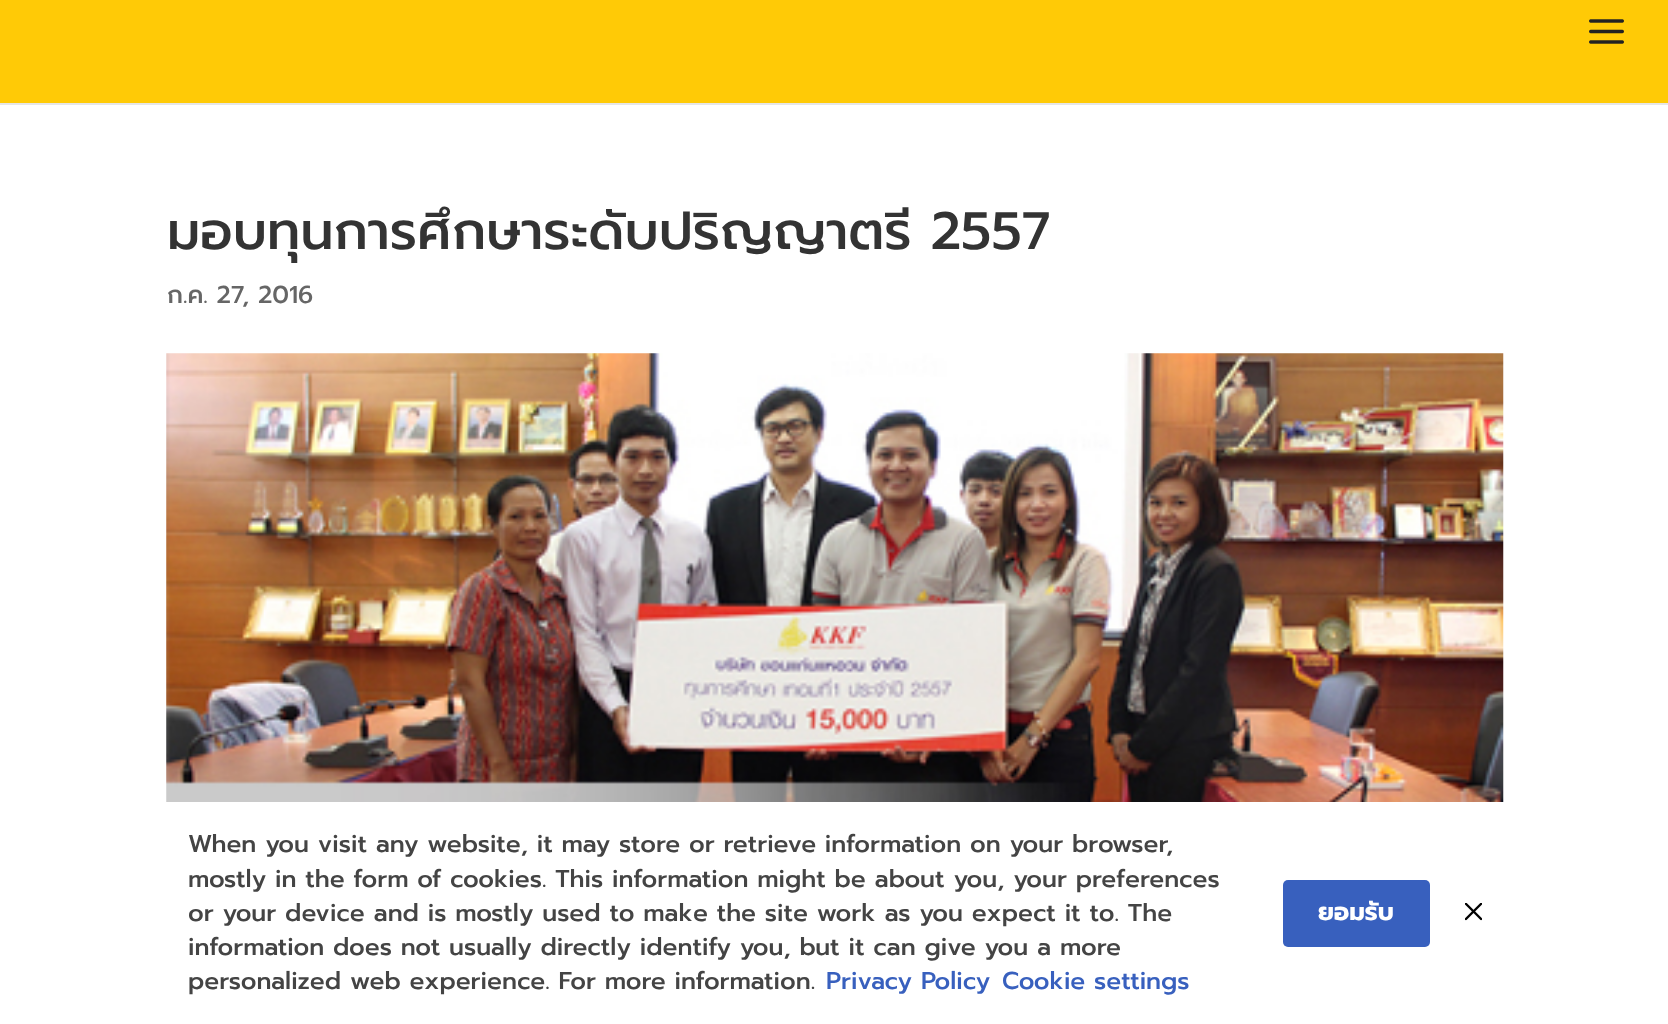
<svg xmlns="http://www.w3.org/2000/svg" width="1668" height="1024">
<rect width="100%" height="100%" fill="#fff"/>
<path d="M0 103v2h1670v-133v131z" fill="#e6e6e6"/>
<rect width="1668" height="103" fill="#ffca06"/>
<image x="1589" y="19" width="35" height="25" href="media/1.png"/>
<text x="167" y="249" style="font-family:Prompt;font-size:52.5px;font-weight:500;fill:#333">มอบทุนการศึกษาระดับปริญญาตรี 2557</text>
<text x="167" y="303" style="font-family:Prompt;font-size:24.5px;font-weight:500;fill:#666">ก.ค. 27, 2016</text>
<image x="166" y="353" width="1338" height="449" href="media/2.png"/>
<text x="188" y="852" style="font-family:Prompt;font-size:24.5px;font-weight:500;fill:#444">When you visit any website, it may store or retrieve information on your browser,</text>
<text x="188" y="887" style="font-family:Prompt;font-size:24.5px;font-weight:500;fill:#444">mostly in the form of cookies. This information might be about you, your preferences</text>
<text x="188" y="921" style="font-family:Prompt;font-size:24.5px;font-weight:500;fill:#444">or your device and is mostly used to make the site work as you expect it to. The</text>
<text x="188" y="955" style="font-family:Prompt;font-size:24.5px;font-weight:500;fill:#444">information does not usually directly identify you, but it can give you a more</text>
<text x="188" y="989" style="font-family:Prompt;font-size:24.5px;font-weight:500;fill:#444">personalized web experience. For more information.</text>
<text x="826" y="989" style="font-family:Prompt;font-size:24.5px;font-weight:500;fill:#3860be">Privacy Policy</text>
<text x="1002" y="989" style="font-family:Prompt;font-size:24.5px;font-weight:500;fill:#3860be">Cookie settings</text>
<rect x="1283" y="880" width="147" height="67" rx="5" fill="#3860be"/>
<text x="1318" y="920" style="font-family:Prompt;font-size:24.5px;font-weight:bold;fill:#fff">ยอมรับ</text>
<image x="1465" y="903" width="17" height="18" href="media/3.png"/>
</svg>
